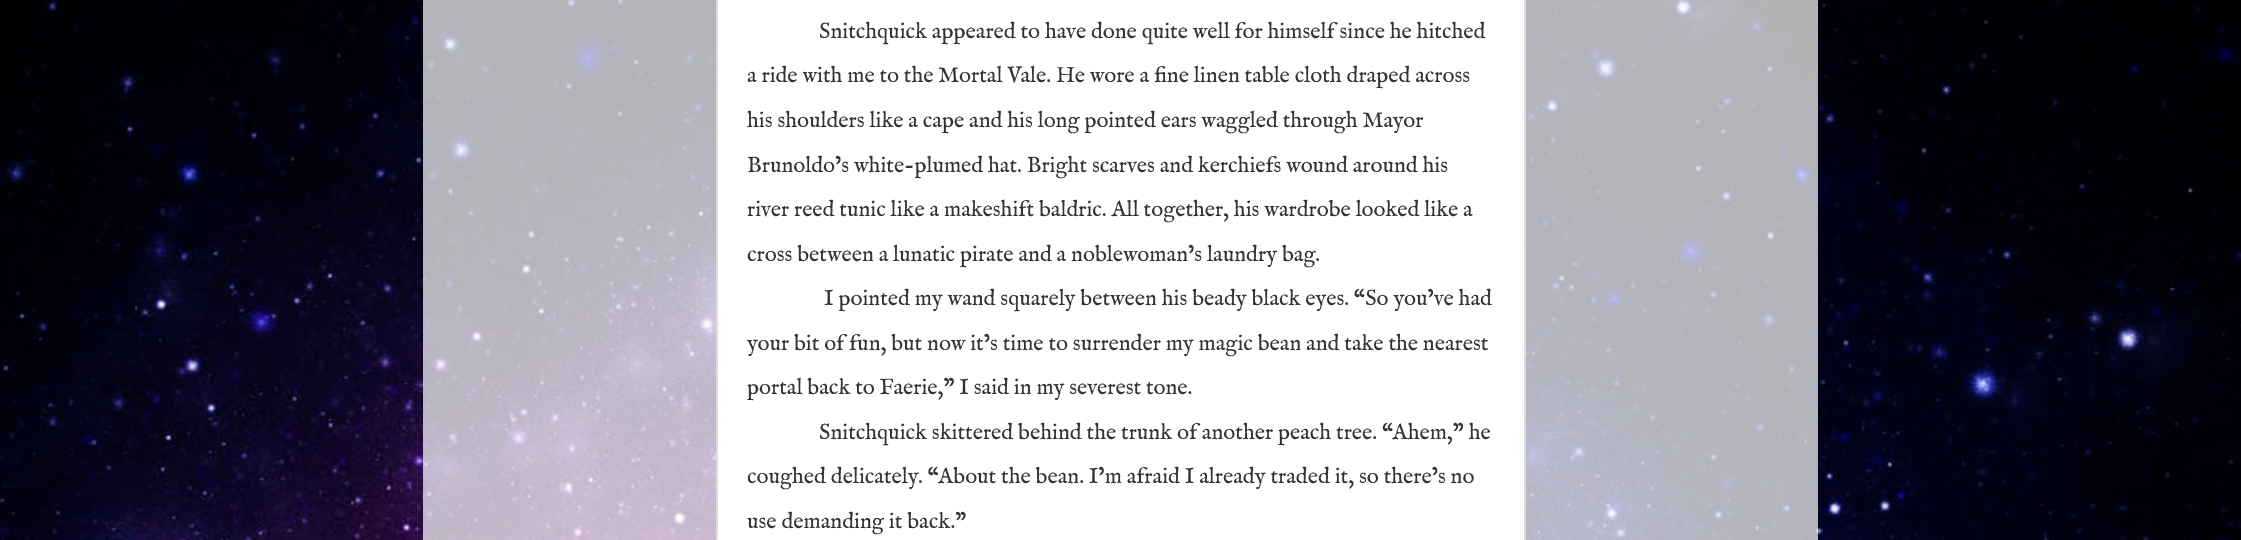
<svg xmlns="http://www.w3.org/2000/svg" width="2241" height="540">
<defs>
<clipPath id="clip1"><path d="M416 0h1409v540h-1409zm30-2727h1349c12.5 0 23 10.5 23 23v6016c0 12.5-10.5 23-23 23h-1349c-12.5 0-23-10.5-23-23v-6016c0-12.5 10.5-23 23-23z" clip-rule="evenodd"/></clipPath>
</defs>
<rect width="100%" height="100%" fill="#fff"/>
<image x="0" y="0" width="2241" height="540" href="media/1.png"/>
<g clip-path="url(#clip1)">
<rect x="423" y="-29" width="1395" height="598" rx="23" fill="#00000026" filter="blur(2px)"/>
</g>
<rect x="423" width="1395" height="540" fill="#ffffffb3"/>
<rect x="717" y="-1" width="808" height="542" fill="#fff" stroke="#ddd" stroke-width="2"/>
<text x="819" y="38" style="font-family:IM FELL English;font-size:22.25px;fill:#333">Snitchquick appeared to have done quite well for himself since he hitched</text>
<text x="747" y="82" style="font-family:IM FELL English;font-size:22.25px;fill:#333">a ride with me to the Mortal Vale. He wore a fine linen table cloth draped across</text>
<text x="747" y="127" style="font-family:IM FELL English;font-size:22.25px;fill:#333">his shoulders like a cape and his long pointed ears waggled through Mayor</text>
<text x="747" y="172" style="font-family:IM FELL English;font-size:22.25px;fill:#333">Brunoldo’s white-plumed hat. Bright scarves and kerchiefs wound around his</text>
<text x="747" y="216" style="font-family:IM FELL English;font-size:22.25px;fill:#333">river reed tunic like a makeshift baldric. All together, his wardrobe looked like a</text>
<text x="747" y="261" style="font-family:IM FELL English;font-size:22.25px;fill:#333">cross between a lunatic pirate and a noblewoman’s laundry bag.</text>
<text x="824" y="305" style="font-family:IM FELL English;font-size:22.25px;fill:#333">I pointed my wand squarely between his beady black eyes. “So you’ve had</text>
<text x="747" y="350" style="font-family:IM FELL English;font-size:22.25px;fill:#333">your bit of fun, but now it’s time to surrender my magic bean and take the nearest</text>
<text x="747" y="394" style="font-family:IM FELL English;font-size:22.25px;fill:#333">portal back to Faerie,” I said in my severest tone.</text>
<text x="819" y="439" style="font-family:IM FELL English;font-size:22.25px;fill:#333">Snitchquick skittered behind the trunk of another peach tree. “Ahem,” he</text>
<text x="747" y="483" style="font-family:IM FELL English;font-size:22.25px;fill:#333">coughed delicately. “About the bean. I’m afraid I already traded it, so there’s no</text>
<text x="747" y="528" style="font-family:IM FELL English;font-size:22.25px;fill:#333">use demanding it back.”</text>
</svg>
